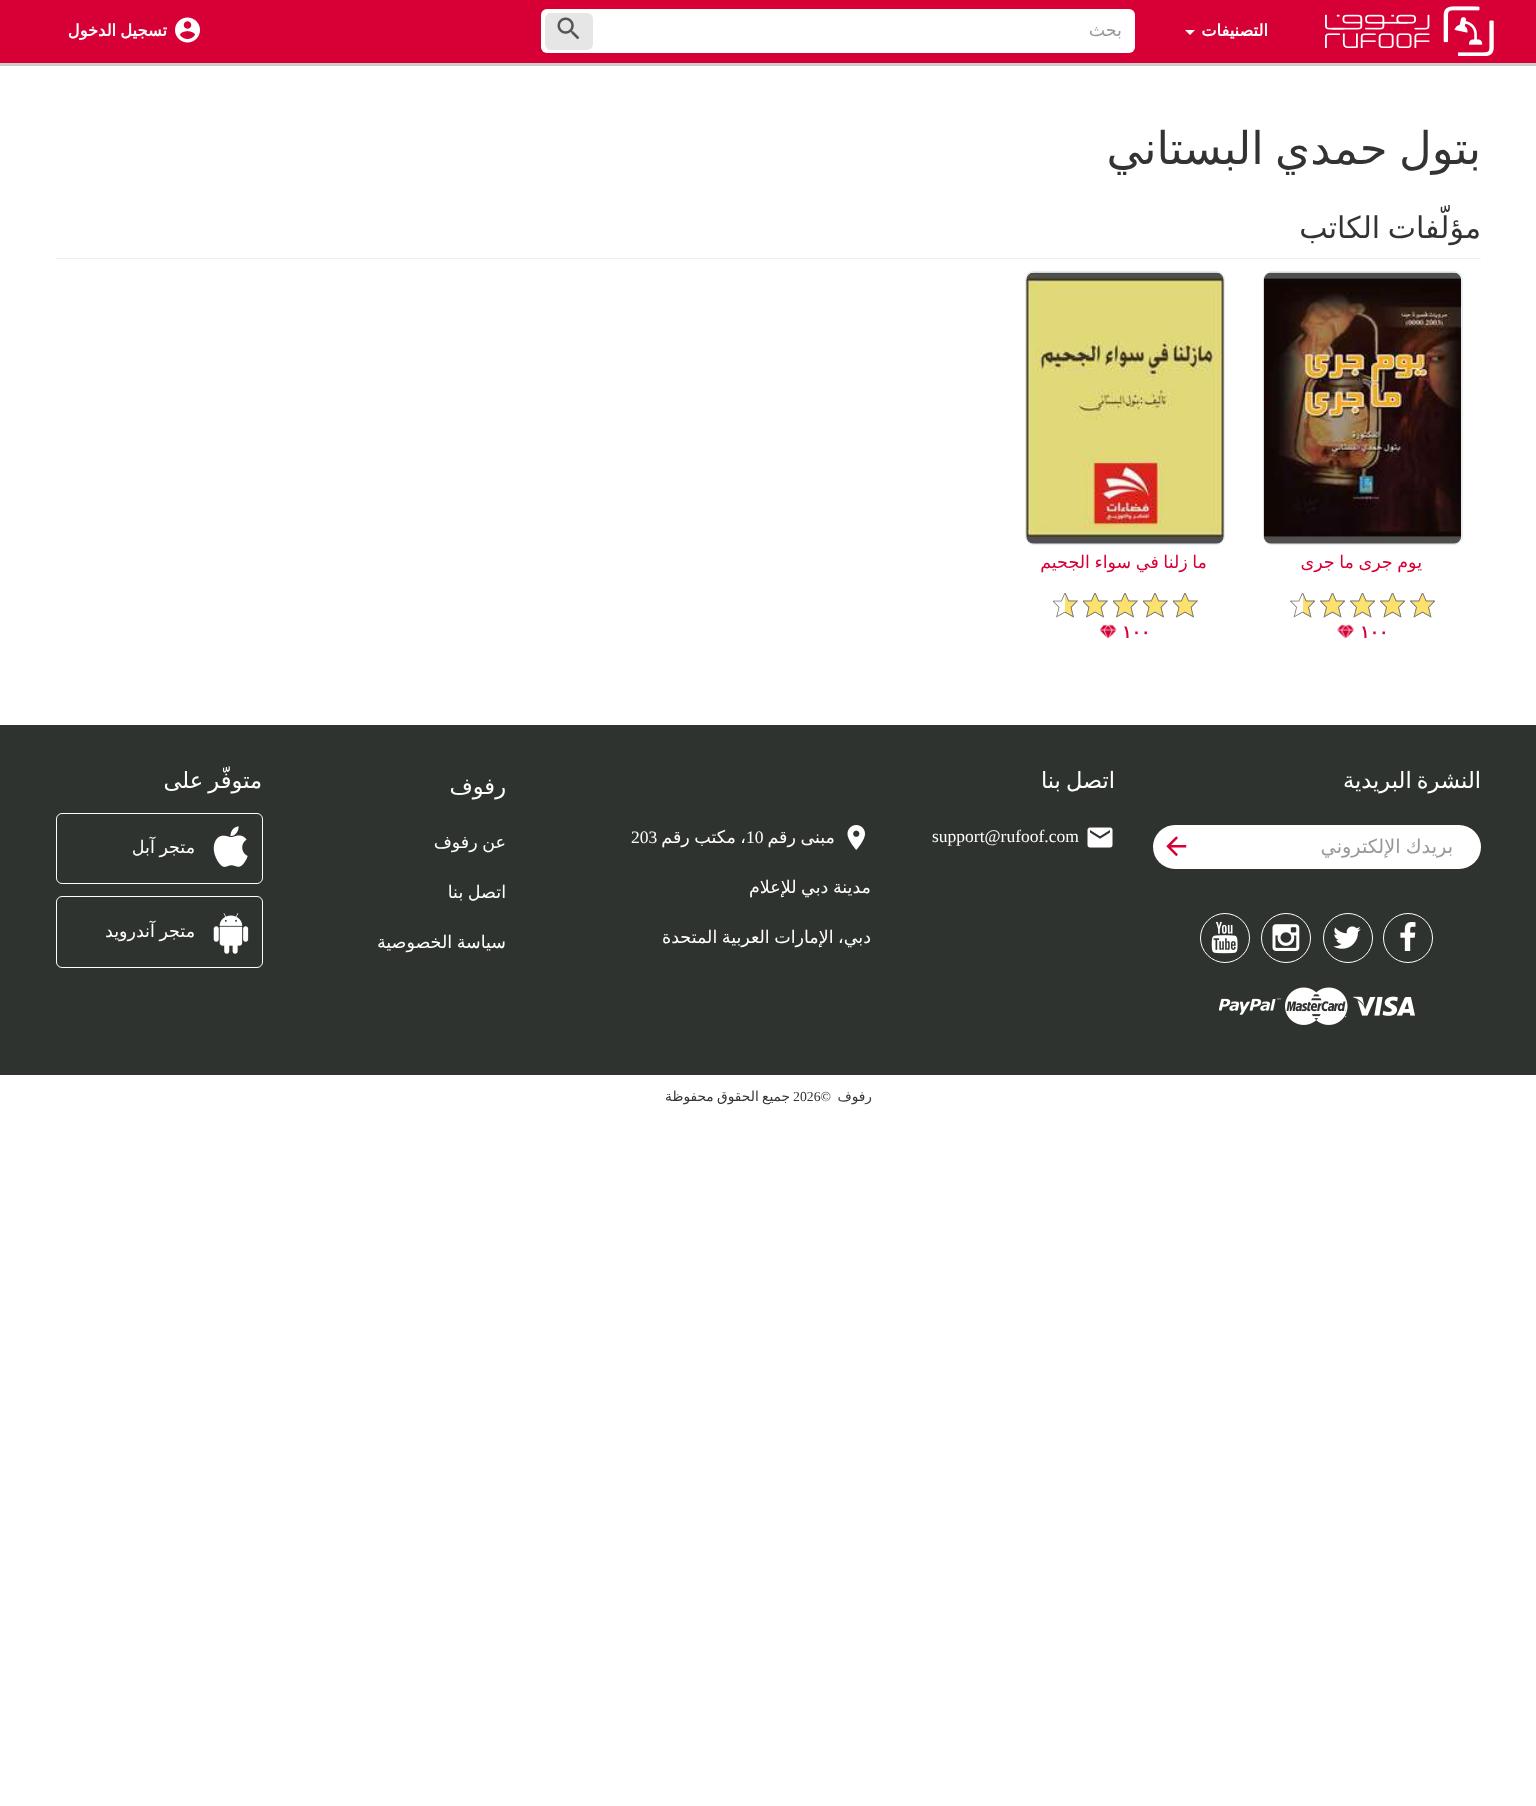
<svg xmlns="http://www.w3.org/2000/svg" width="1536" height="1806">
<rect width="100%" height="100%" fill="#fff"/>
<rect y="63" width="1536" height="3" fill="#ccc"/>
<rect width="1536" height="63" fill="#d70036"/>
<image x="1325" y="6" width="169" height="50" href="media/1.png"/>
<text x="1268" y="36" style="font-family:DejaVu Sans;font-size:16.25px;font-weight:bold;direction:rtl;fill:#fff">التصنيفات</text>
<path d="M1185 30h10l-5 5z" fill="#fff"/>
<rect x="541" y="9" width="594" height="44" rx="6" fill="#fff"/>
<text x="1122" y="36" style="font-family:DejaVu Sans;font-size:17.5px;direction:rtl;fill:#999">بحث</text>
<rect x="545" y="13" width="48" height="37" rx="6" fill="#e6e6e6"/>
<image x="557" y="17" width="23" height="23" href="media/2.png"/>
<image x="175" y="17" width="25" height="26" href="media/3.png"/>
<text x="167" y="36" word-spacing="-1" style="font-family:DejaVu Sans;font-size:16.25px;font-weight:bold;direction:rtl;fill:#fff">تسجيل الدخول</text>
<text x="1481" y="164" word-spacing="-3" style="font-family:DejaVu Sans;font-size:45px;direction:rtl;fill:#333">بتول حمدي البستاني</text>
<rect x="56" y="258" width="1425" height="1" fill="#eee"/>
<text x="1481" y="238" word-spacing="-2" style="font-family:DejaVu Sans;font-size:30px;direction:rtl;fill:#333">مؤلّفات الكاتب</text>
<rect x="1263.5" y="271.5" width="199" height="273" rx="8.5" fill="none" stroke="#e3ebf0"/>
<image x="1263" y="272" width="199" height="272" href="media/4.png"/>
<text x="1422" y="568" word-spacing="-1" style="font-family:DejaVu Sans;font-size:17.5px;direction:rtl;fill:#d70036">يوم جرى ما جرى</text>
<image x="1410" y="593" width="25" height="25" href="media/5.png"/>
<image x="1380" y="593" width="25" height="25" href="media/5.png"/>
<image x="1350" y="593" width="25" height="25" href="media/5.png"/>
<image x="1320" y="593" width="25" height="25" href="media/5.png"/>
<image x="1290" y="593" width="25" height="25" href="media/5.png"/>
<image x="1410" y="593" width="25" height="25" href="media/6.png"/>
<image x="1380" y="593" width="25" height="25" href="media/6.png"/>
<image x="1350" y="593" width="25" height="25" href="media/6.png"/>
<image x="1320" y="593" width="25" height="25" href="media/6.png"/>
<image x="1303" y="593" width="12" height="25" href="media/7.png"/>
<text x="1360" y="638" style="font-family:DejaVu Sans;font-size:17.5px;font-weight:bold;fill:#d70036">١٠٠</text>
<image x="1337" y="624" width="17" height="15" href="media/8.png"/>
<rect x="1025.5" y="271.5" width="199" height="273" rx="8.5" fill="none" stroke="#e3ebf0"/>
<image x="1026" y="272" width="198" height="272" href="media/9.png"/>
<text x="1207" y="568" word-spacing="-1" style="font-family:DejaVu Sans;font-size:17.5px;direction:rtl;fill:#d70036">ما زلنا في سواء الجحيم</text>
<image x="1173" y="593" width="25" height="25" href="media/10.png"/>
<image x="1143" y="593" width="25" height="25" href="media/10.png"/>
<image x="1113" y="593" width="25" height="25" href="media/10.png"/>
<image x="1083" y="593" width="25" height="25" href="media/10.png"/>
<image x="1053" y="593" width="25" height="25" href="media/10.png"/>
<image x="1173" y="593" width="25" height="25" href="media/11.png"/>
<image x="1143" y="593" width="25" height="25" href="media/11.png"/>
<image x="1113" y="593" width="25" height="25" href="media/11.png"/>
<image x="1083" y="593" width="25" height="25" href="media/11.png"/>
<image x="1065" y="593" width="13" height="25" href="media/12.png"/>
<text x="1122" y="638" style="font-family:DejaVu Sans;font-size:17.5px;font-weight:bold;fill:#d70036">١٠٠</text>
<image x="1100" y="624" width="17" height="15" href="media/13.png"/>
<rect y="725" width="1536" height="350" fill="#2f332f"/>
<text x="1481" y="788" word-spacing="-2" style="font-family:DejaVu Sans;font-size:22.5px;direction:rtl;fill:#fff">النشرة البريدية</text>
<rect x="1153" y="825" width="328" height="44" rx="22" fill="#fff"/>
<text x="1453" y="853" word-spacing="-1" style="font-family:DejaVu Sans;font-size:19.25px;direction:rtl;fill:#999">بريدك الإلكتروني</text>
<image x="1166" y="836" width="21" height="21" href="media/14.png"/>
<circle cx="1408" cy="938" r="24.5" fill="none" stroke="#fff"/>
<image x="1400" y="922" width="16" height="29" href="media/15.png"/>
<circle cx="1348" cy="938" r="24.5" fill="none" stroke="#fff"/>
<image x="1333" y="926" width="28" height="23" href="media/16.png"/>
<circle cx="1286" cy="938" r="24.5" fill="none" stroke="#fff"/>
<image x="1272" y="924" width="28" height="27" href="media/17.png"/>
<circle cx="1225" cy="938" r="24.5" fill="none" stroke="#fff"/>
<image x="1211" y="921" width="27" height="33" href="media/18.png"/>
<image x="1353" y="996" width="62" height="20" href="media/19.png"/>
<image x="1285" y="987" width="63" height="38" href="media/20.png"/>
<image x="1219" y="997" width="62" height="18" href="media/21.png"/>
<text x="1115" y="788" word-spacing="-2" style="font-family:DejaVu Sans;font-size:22.5px;direction:rtl;fill:#fff">اتصل بنا</text>
<image x="1087" y="827" width="26" height="21" href="media/22.png"/>
<text x="932" y="842" style="font-family:Liberation Serif;font-size:17.5px;fill:#fff">support@rufoof.com</text>
<image x="847" y="825" width="18" height="25" href="media/23.png"/>
<text x="835" y="843" word-spacing="-1" style="font-family:DejaVu Sans;font-size:17.5px;direction:rtl;fill:#fff">مبنى رقم</text>
<text x="746" y="843" style="font-family:Liberation Serif;font-size:17.5px;fill:#fff">10</text>
<text x="746" y="843" word-spacing="-1" style="font-family:DejaVu Sans;font-size:17.5px;direction:rtl;fill:#fff">، مكتب رقم</text>
<text x="631" y="843" style="font-family:Liberation Serif;font-size:17.5px;fill:#fff">203</text>
<text x="871" y="893" word-spacing="-1" style="font-family:DejaVu Sans;font-size:17.5px;direction:rtl;fill:#fff">مدينة دبي للإعلام</text>
<text x="871" y="943" word-spacing="-1" style="font-family:DejaVu Sans;font-size:17.5px;direction:rtl;fill:#fff">دبي، الإمارات العربية المتحدة</text>
<text x="506" y="794" style="font-family:DejaVu Sans;font-size:22.5px;direction:rtl;fill:#fff">رفوف</text>
<text x="506" y="848" word-spacing="-1" style="font-family:DejaVu Sans;font-size:17.5px;direction:rtl;fill:#fff">عن رفوف</text>
<text x="506" y="898" word-spacing="-1" style="font-family:DejaVu Sans;font-size:17.5px;direction:rtl;fill:#fff">اتصل بنا</text>
<text x="506" y="948" word-spacing="-1" style="font-family:DejaVu Sans;font-size:17.5px;direction:rtl;fill:#fff">سياسة الخصوصية</text>
<text x="262" y="788" word-spacing="-2" style="font-family:DejaVu Sans;font-size:22.5px;direction:rtl;fill:#fff">متوفّر على</text>
<rect x="56.5" y="813.5" width="206" height="70" rx="5.5" fill="none" stroke="#fff"/>
<image x="213" y="826" width="35" height="41" href="media/24.png"/>
<text x="195" y="853" word-spacing="-1" style="font-family:DejaVu Sans;font-size:17.5px;direction:rtl;fill:#fff">متجر آبل</text>
<rect x="56.5" y="896.5" width="206" height="71" rx="5.5" fill="none" stroke="#fff"/>
<image x="213" y="913" width="36" height="41" href="media/25.png"/>
<text x="195" y="937" word-spacing="-1" style="font-family:DejaVu Sans;font-size:17.5px;direction:rtl;fill:#fff">متجر آندرويد</text>
<text x="872" y="1101" style="font-family:DejaVu Sans;font-size:13.75px;direction:rtl;fill:#333">رفوف</text>
<text x="793" y="1101" style="font-family:Liberation Serif;font-size:13.75px;fill:#333">2026©</text>
<text x="790" y="1101" word-spacing="-1" style="font-family:DejaVu Sans;font-size:13.75px;direction:rtl;fill:#333">جميع الحقوق محفوظة</text>
</svg>
